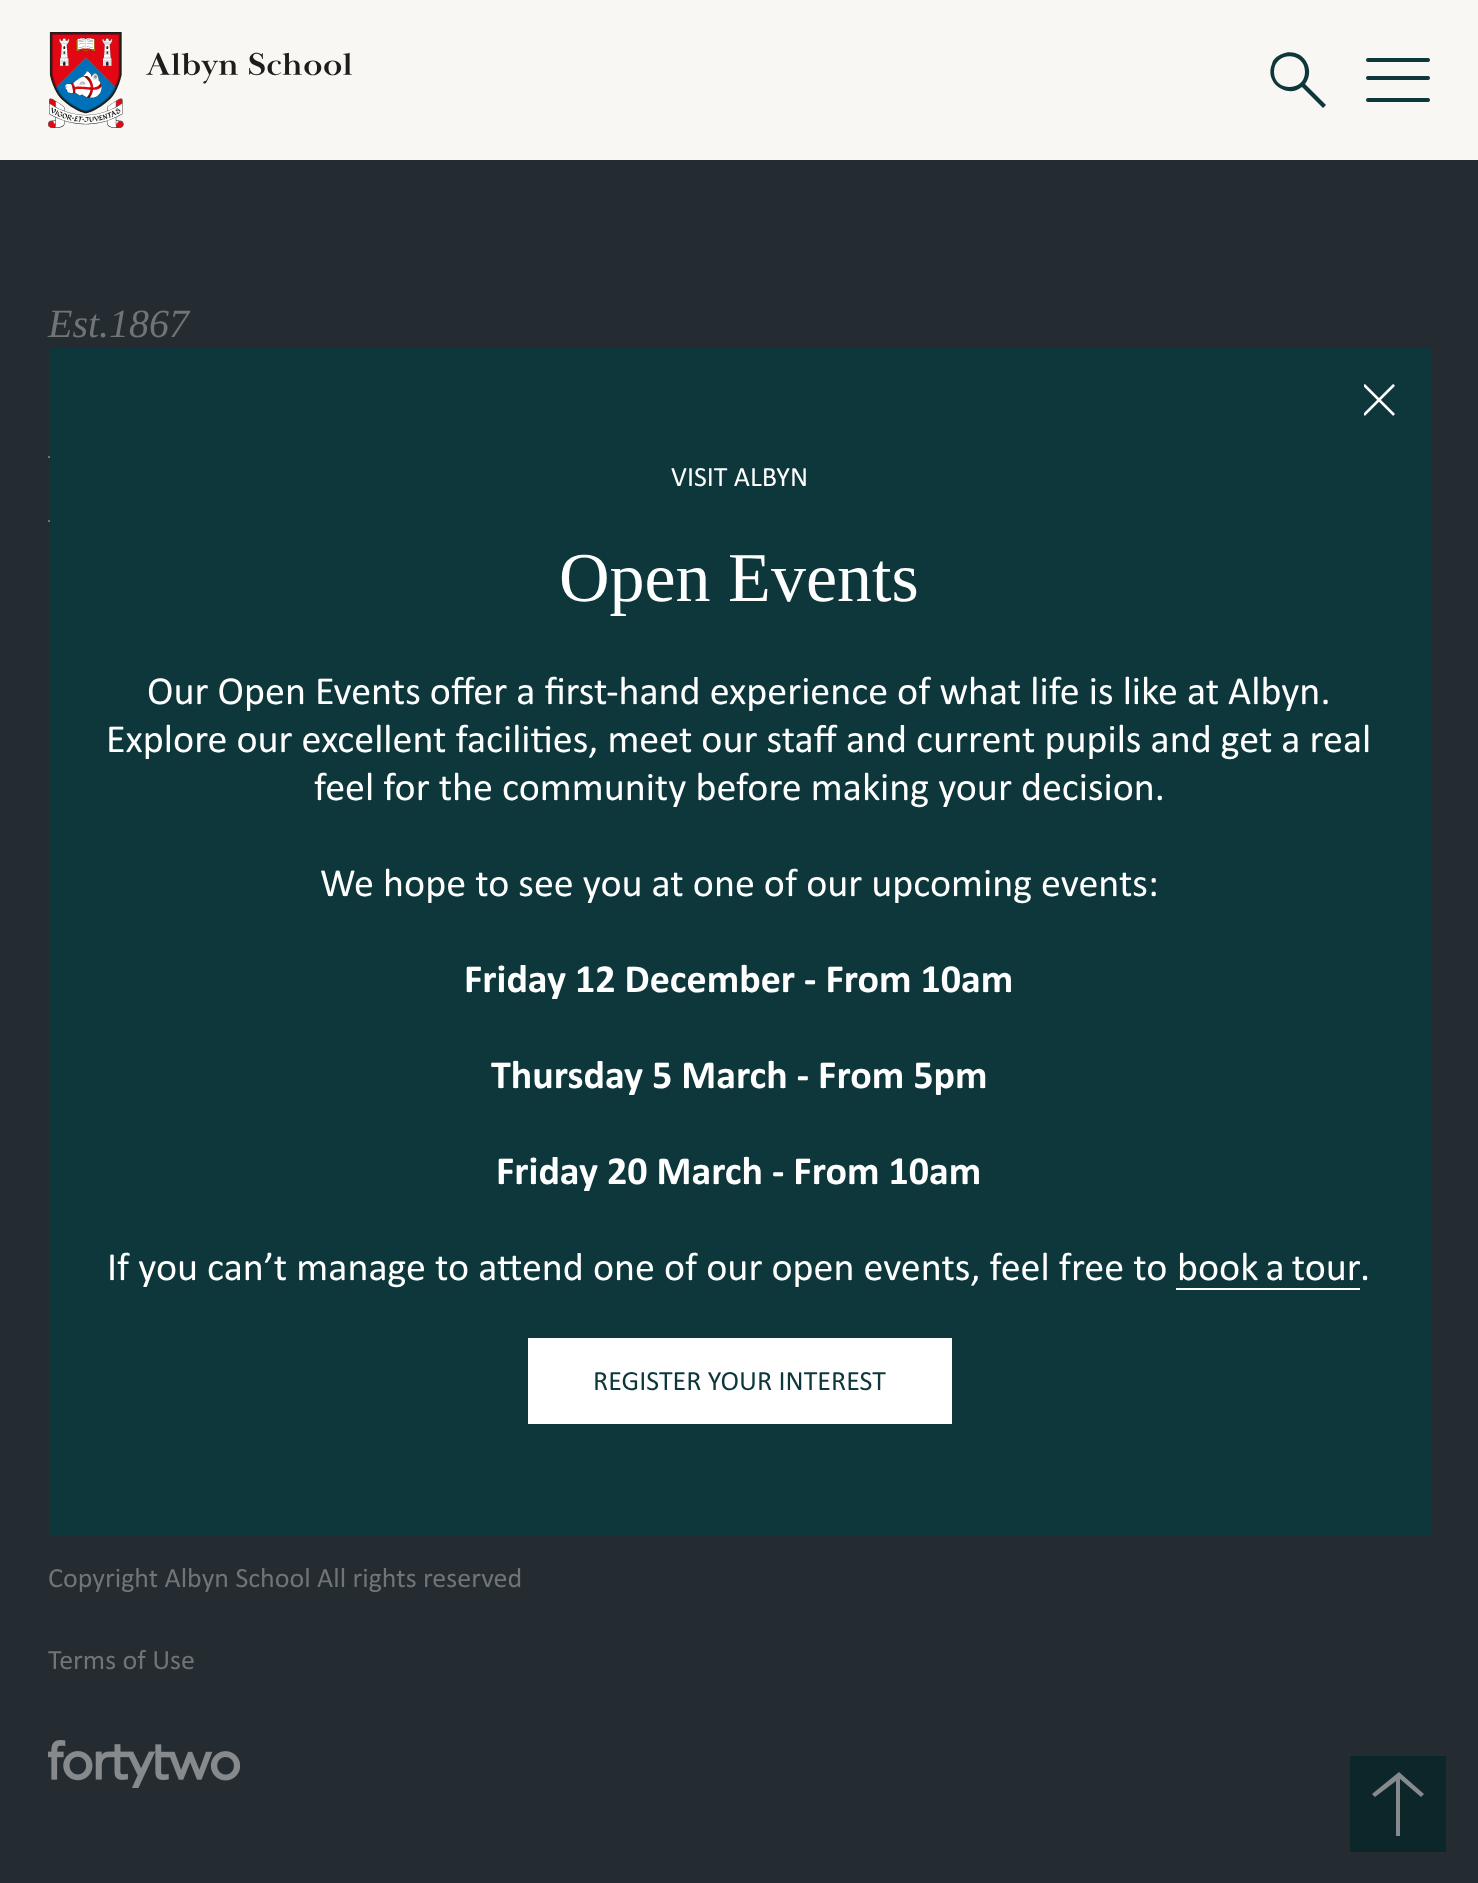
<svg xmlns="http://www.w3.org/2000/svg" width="1478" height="1883">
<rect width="100%" height="100%" fill="#252c31"/>
<rect width="1478" height="160" fill="#f9f7f3"/>
<image x="48" y="32" width="304" height="96" href="media/1.png"/>
<path d="M1326 105l-21-21c7-9 5-22-5-29c-5-3-12-4-18-1c-5 2-9 5-10 10c-8 19 15 35 30 23l21 21zm-52-33c0-21 31-21 31 0c0 20-31 20-31 0z" fill="#0d373a"/>
<rect x="1366" y="58" width="64" height="4" rx="2" fill="#0d373a"/>
<rect x="1366" y="76" width="64" height="4" rx="2" fill="#0d373a"/>
<rect x="1366" y="98" width="64" height="4" rx="2" fill="#0d373a"/>
<text x="48" y="337" style="font-family:Liberation Serif;font-size:40px;font-style:italic;fill:#6f7477">Est.1867</text>
<rect x="48" y="456" width="2" height="2" fill="#6f7477"/>
<rect x="48" y="520" width="2" height="2" fill="#6f7477"/>
<text x="48" y="1587" style="font-family:Calibri;font-size:28px;fill:#6f7477">Copyright Albyn School All rights reserved</text>
<text x="48" y="1669" style="font-family:Calibri;font-size:28px;fill:#6f7477">Terms of Use</text>
<image x="48" y="1740" width="192" height="48" href="media/2.png"/>
<rect x="50" y="348" width="1382" height="1188" fill="#0d373a"/>
<image x="1364" y="384" width="31" height="32" href="media/3.png"/>
<text x="671" y="486" style="font-family:Calibri;font-size:28px;fill:#fff">VISIT ALBYN</text>
<text x="559" y="601" style="font-family:Liberation Serif;font-size:70px;fill:#fff">Open Events</text>
<text x="147" y="704" style="font-family:Calibri;font-size:40px;fill:#fff">Our Open Events offer a first-hand experience of what life is like at Albyn.</text>
<text x="106" y="752" style="font-family:Calibri;font-size:40px;fill:#fff">Explore our excellent facilities, meet our staff and current pupils and get a real</text>
<text x="314" y="800" style="font-family:Calibri;font-size:40px;fill:#fff">feel for the community before making your decision.</text>
<text x="320" y="896" style="font-family:Calibri;font-size:40px;fill:#fff">We hope to see you at one of our upcoming events:</text>
<text x="464" y="992" style="font-family:Calibri;font-size:40px;font-weight:bold;fill:#fff">Friday 12 December - From 10am</text>
<text x="491" y="1088" style="font-family:Calibri;font-size:40px;font-weight:bold;fill:#fff">Thursday 5 March - From 5pm</text>
<text x="496" y="1184" style="font-family:Calibri;font-size:40px;font-weight:bold;fill:#fff">Friday 20 March - From 10am</text>
<text x="107" y="1280" style="font-family:Calibri;font-size:40px;fill:#fff">If you can’t manage to attend one of our open events, feel free to</text>
<text x="1177" y="1280" word-spacing="-2" style="font-family:Calibri;font-size:40px;fill:#fff">book a tour</text>
<rect x="1176" y="1288" width="184" height="2" fill="#fff"/>
<text x="1360" y="1280" style="font-family:Calibri;font-size:40px;fill:#fff">.</text>
<rect x="528" y="1338" width="424" height="86" fill="#fff"/>
<text x="593" y="1390" style="font-family:Calibri;font-size:28px;fill:#0d373a">REGISTER YOUR INTEREST</text>
<rect x="1350" y="1756" width="96" height="96" fill="#0d262a"/>
<path d="M1399 1772l25 22l-3 3l-21-18v57h-4v-55l-21 16l-3-3z" fill="#868a8d"/>
</svg>
